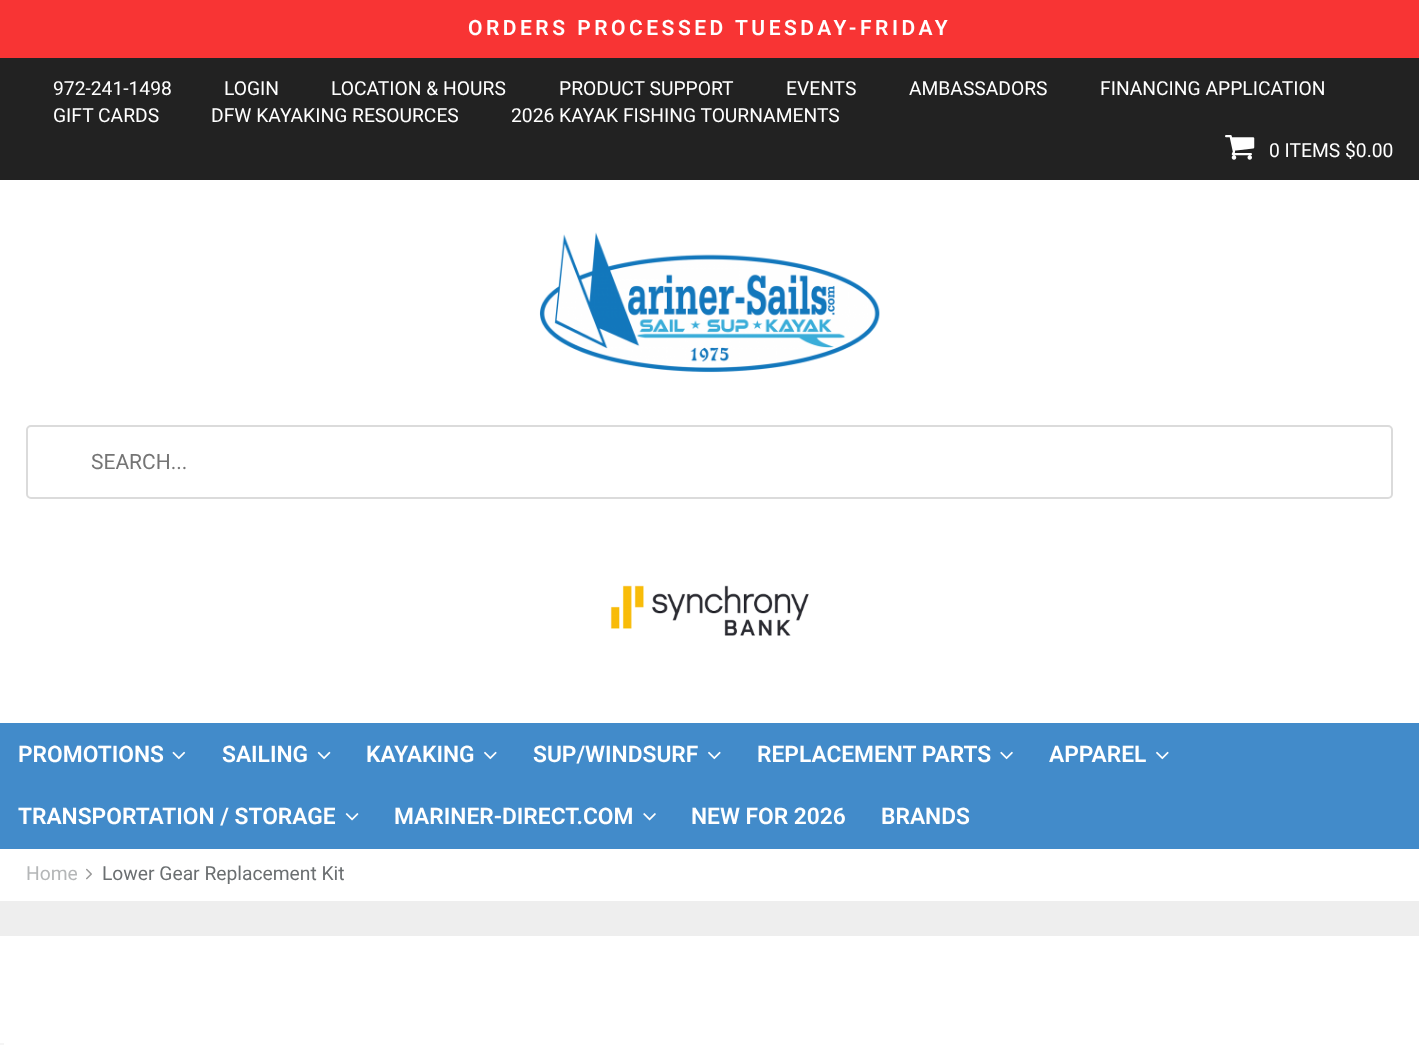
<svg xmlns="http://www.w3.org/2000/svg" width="1419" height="1045">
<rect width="100%" height="100%" fill="#fff"/>
<rect width="1419" height="58" fill="#f83434"/>
<text x="468" y="35" style="font-family:Roboto;font-size:21px;font-weight:600;letter-spacing:3.5px;fill:#fff">ORDERS PROCESSED TUESDAY-FRIDAY</text>
<rect y="58" width="1419" height="122" fill="#222"/>
<text x="53" y="95" style="font-family:Roboto;font-size:19.25px;fill:#fff">972-241-1498</text>
<text x="224" y="95" style="font-family:Roboto;font-size:19.25px;fill:#fff">LOGIN</text>
<text x="331" y="95" style="font-family:Roboto;font-size:19.25px;fill:#fff">LOCATION &amp; HOURS</text>
<text x="559" y="95" style="font-family:Roboto;font-size:19.25px;fill:#fff">PRODUCT SUPPORT</text>
<text x="786" y="95" style="font-family:Roboto;font-size:19.25px;fill:#fff">EVENTS</text>
<text x="909" y="95" style="font-family:Roboto;font-size:19.25px;fill:#fff">AMBASSADORS</text>
<text x="1100" y="95" style="font-family:Roboto;font-size:19.25px;fill:#fff">FINANCING APPLICATION</text>
<text x="53" y="122" style="font-family:Roboto;font-size:19.25px;fill:#fff">GIFT CARDS</text>
<text x="211" y="122" style="font-family:Roboto;font-size:19.25px;fill:#fff">DFW KAYAKING RESOURCES</text>
<text x="511" y="122" style="font-family:Roboto;font-size:19.25px;fill:#fff">2026 KAYAK FISHING TOURNAMENTS</text>
<image x="1225" y="135" width="30" height="25" href="media/1.png"/>
<text x="1269" y="157" style="font-family:Roboto;font-size:19.25px;fill:#fff">0 ITEMS $0.00</text>
<image x="539" y="232" width="341" height="141" href="media/2.png"/>
<rect x="27" y="426" width="1365" height="72" rx="4" fill="none" stroke="#dbdbdb" stroke-width="2"/>
<text x="91" y="469" style="font-family:Roboto;font-size:21px;fill:#757575">SEARCH...</text>
<image x="610" y="585" width="199" height="51" href="media/3.png"/>
<rect y="723" width="1419" height="126" fill="#428bca"/>
<text x="18" y="762" style="font-family:Roboto;font-size:22.75px;font-weight:600;fill:#fff">PROMOTIONS</text>
<image x="172" y="751" width="14" height="9" href="media/4.png"/>
<text x="222" y="762" style="font-family:Roboto;font-size:22.75px;font-weight:600;fill:#fff">SAILING</text>
<image x="317" y="751" width="14" height="9" href="media/5.png"/>
<text x="366" y="762" style="font-family:Roboto;font-size:22.75px;font-weight:600;fill:#fff">KAYAKING</text>
<image x="484" y="751" width="13" height="9" href="media/6.png"/>
<text x="533" y="762" style="font-family:Roboto;font-size:22.75px;font-weight:600;fill:#fff">SUP/WINDSURF</text>
<image x="708" y="751" width="13" height="9" href="media/6.png"/>
<text x="757" y="762" style="font-family:Roboto;font-size:22.75px;font-weight:600;fill:#fff">REPLACEMENT PARTS</text>
<image x="1000" y="751" width="13" height="9" href="media/7.png"/>
<text x="1049" y="762" style="font-family:Roboto;font-size:22.75px;font-weight:600;fill:#fff">APPAREL</text>
<image x="1156" y="751" width="13" height="9" href="media/6.png"/>
<text x="18" y="824" style="font-family:Roboto;font-size:22.75px;font-weight:600;fill:#fff">TRANSPORTATION / STORAGE</text>
<image x="345" y="813" width="14" height="8" href="media/8.png"/>
<text x="394" y="824" style="font-family:Roboto;font-size:22.75px;font-weight:600;fill:#fff">MARINER-DIRECT.COM</text>
<image x="643" y="813" width="13" height="8" href="media/9.png"/>
<text x="691" y="824" style="font-family:Roboto;font-size:22.75px;font-weight:600;fill:#fff">NEW FOR 2026</text>
<text x="881" y="824" style="font-family:Roboto;font-size:22.75px;font-weight:600;fill:#fff">BRANDS</text>
<text x="26" y="880" style="font-family:Roboto;font-size:19.25px;fill:#b5b7b8">Home</text>
<image x="86" y="868" width="6" height="12" href="media/10.png"/>
<text x="102" y="880" style="font-family:Roboto;font-size:19.25px;fill:#6b6f71">Lower Gear Replacement Kit</text>
<rect y="901" width="1419" height="35" fill="#eee"/>
<rect y="1043" width="4" height="2" fill="#f5f5f5"/>
</svg>
